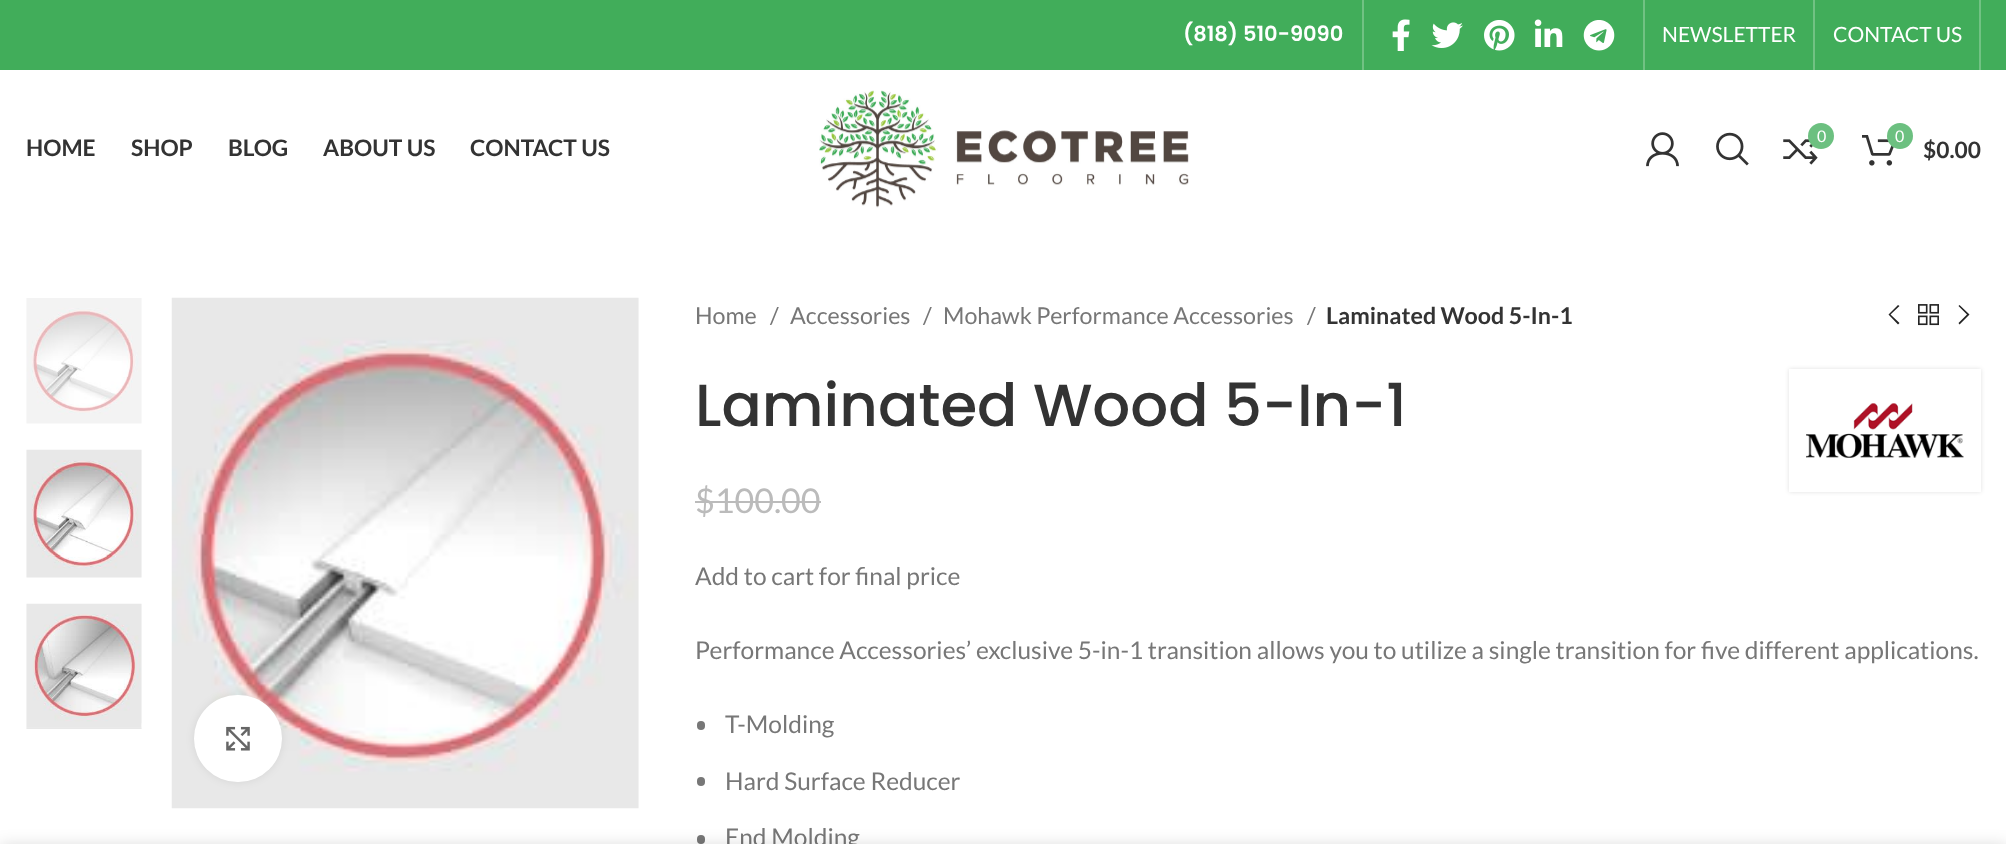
<svg xmlns="http://www.w3.org/2000/svg" width="2006" height="844">
<rect width="100%" height="100%" fill="#fff"/>
<rect width="2006" height="70" fill="#41ad5a"/>
<text x="1183" y="41" style="font-family:Poppins;font-size:21px;font-weight:600;fill:#fff">(818) 510-9090</text>
<rect x="1362" width="2" height="70" fill="#71c283"/>
<image x="1392" y="19" width="18" height="32" href="media/1.png"/>
<image x="1431" y="22" width="32" height="26" href="media/2.png"/>
<image x="1484" y="20" width="31" height="31" href="media/3.png"/>
<image x="1534" y="19" width="29" height="28" href="media/4.png"/>
<image x="1583" y="20" width="32" height="31" href="media/5.png"/>
<rect x="1643" width="2" height="70" fill="#71c283"/>
<text x="1662" y="42" style="font-family:Lato;font-size:21px;fill:#fff">NEWSLETTER</text>
<rect x="1813" width="2" height="70" fill="#71c283"/>
<text x="1833" y="42" style="font-family:Lato;font-size:21px;fill:#fff">CONTACT US</text>
<rect x="1979" width="2" height="70" fill="#71c283"/>
<text x="26" y="156" style="font-family:Lato;font-size:22.75px;font-weight:bold;fill:#333">HOME</text>
<text x="131" y="156" style="font-family:Lato;font-size:22.75px;font-weight:bold;fill:#333">SHOP</text>
<text x="228" y="156" style="font-family:Lato;font-size:22.75px;font-weight:bold;fill:#333">BLOG</text>
<text x="323" y="156" style="font-family:Lato;font-size:22.75px;font-weight:bold;fill:#333">ABOUT US</text>
<text x="470" y="156" style="font-family:Lato;font-size:22.75px;font-weight:bold;fill:#333">CONTACT US</text>
<image x="819" y="90" width="370" height="118" href="media/6.png"/>
<image x="1646" y="132" width="33" height="35" href="media/7.png"/>
<image x="1716" y="132" width="33" height="34" href="media/8.png"/>
<image x="1783" y="139" width="35" height="26" href="media/9.png"/>
<circle cx="1821" cy="136" r="13" fill="#6cc080"/>
<text x="1817" y="142" style="font-family:Lato;font-size:16px;fill:#fff">0</text>
<image x="1862" y="135" width="32" height="31" href="media/10.png"/>
<circle cx="1900" cy="136" r="13" fill="#6cc080"/>
<text x="1895" y="142" style="font-family:Lato;font-size:16px;fill:#fff">0</text>
<text x="1923" y="158" style="font-family:Lato;font-size:22.75px;font-weight:bold;fill:#333">$0.00</text>
<image x="26" y="298" width="116" height="126" href="media/11.png"/>
<image x="26" y="449" width="116" height="129" href="media/12.png"/>
<image x="26" y="603" width="116" height="126" href="media/13.png"/>
<image x="171" y="297" width="468" height="512" href="media/14.png"/>
<rect x="194" y="695" width="88" height="87" rx="43.5" fill="#00000014" filter="blur(4.5px)"/>
<rect x="194" y="695" width="88" height="87" rx="43.5" fill="#fff"/>
<path d="M145.5 733c-4-4-4-11 0-15" fill="none" stroke="#fff" stroke-width="1.8"/>
<image x="226" y="726" width="24" height="25" href="media/15.png"/>
<text x="695" y="324" style="font-family:Lato;font-size:23.25px;fill:#777">Home</text>
<text x="770" y="324" style="font-family:Lato;font-size:23.25px;fill:#777">/</text>
<text x="790" y="324" style="font-family:Lato;font-size:23.25px;fill:#777">Accessories</text>
<text x="923" y="324" style="font-family:Lato;font-size:23.25px;fill:#777">/</text>
<text x="943" y="324" style="font-family:Lato;font-size:23.25px;fill:#777">Mohawk Performance Accessories</text>
<text x="1307" y="324" style="font-family:Lato;font-size:23.25px;fill:#777">/</text>
<text x="1326" y="324" style="font-family:Lato;font-size:23.25px;font-weight:bold;fill:#333">Laminated Wood 5-In-1</text>
<path d="M1899.5 306l-1.5-1l-9.5 9.5l9.5 10l1.5-1.5l-9-8.5z" fill="#242424"/>
<image x="1918" y="304" width="21" height="22" href="media/16.png"/>
<path d="M1958.5 306l8.5 8.5l-8.5 8.5l1 1.5l10-10l-10-9.5z" fill="#242424"/>
<text x="695" y="426" style="font-family:Poppins;font-size:59.5px;font-weight:500;fill:#333">Laminated Wood 5-In-1</text>
<rect x="1789" y="369" width="192" height="123" fill="#0000001f" filter="blur(2px)"/>
<rect x="1789" y="369" width="192" height="123" fill="#fff"/>
<image x="1806" y="403" width="158" height="55" href="media/17.png"/>
<text x="695" y="513" style="font-family:Lato;font-size:34px;fill:#bbb">$100.00</text>
<rect x="695" y="501" width="126" height="2" fill="#bbb"/>
<text x="695" y="585" style="font-family:Lato;font-size:24.5px;fill:#777">Add to cart for final price</text>
<text x="695" y="659" style="font-family:Lato;font-size:24.5px;fill:#777">Performance Accessories’ exclusive 5-in-1 transition allows you to utilize a single transition for five different applications.</text>
<rect x="697" y="721" width="8" height="9" rx="4" fill="#777"/>
<text x="725" y="733" style="font-family:Lato;font-size:24.5px;fill:#777">T-Molding</text>
<rect x="697" y="777" width="8" height="9" rx="4" fill="#777"/>
<text x="725" y="790" style="font-family:Lato;font-size:24.5px;fill:#777">Hard Surface Reducer</text>
<rect x="697" y="835" width="8" height="9" rx="4" fill="#777"/>
<text x="725" y="846" style="font-family:Lato;font-size:24.5px;fill:#777">End Molding</text>
<rect y="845" width="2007" height="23" fill="#00000024" filter="blur(8px)"/>
</svg>
